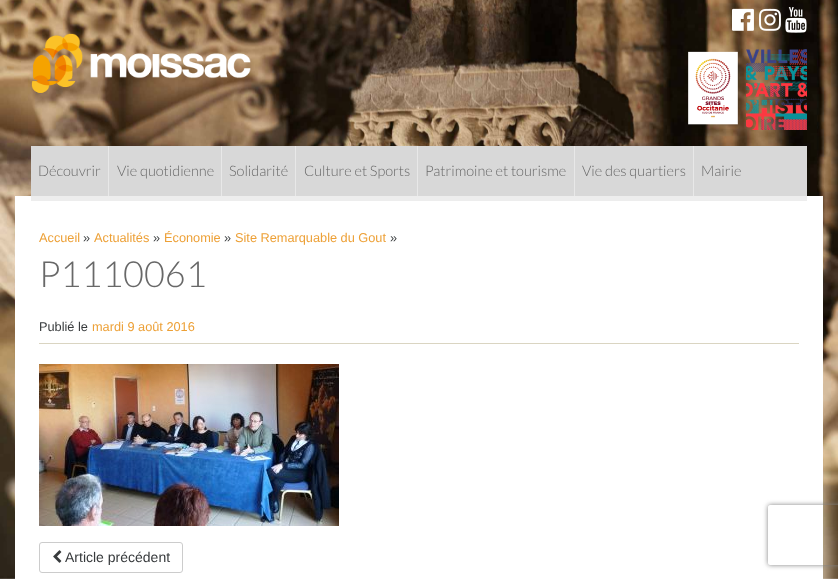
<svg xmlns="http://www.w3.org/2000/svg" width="838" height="579">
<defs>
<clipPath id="clip1"><path d="M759 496h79v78h-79zm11 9h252c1 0 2 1 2 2v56c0 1-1 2-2 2h-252c-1 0-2-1-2-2v-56c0-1 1-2 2-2z" clip-rule="evenodd"/></clipPath>
</defs>
<rect width="100%" height="100%" fill="#fff"/>
<image x="0" y="0" width="838" height="579" href="media/1.png"/>
<image x="31" y="33" width="220" height="60" href="media/2.png"/>
<image x="732" y="8" width="22" height="23" href="media/3.png"/>
<image x="759" y="8" width="22" height="23" href="media/4.png"/>
<image x="785" y="7" width="22" height="26" href="media/5.png"/>
<image x="688" y="51" width="51" height="77" href="media/6.png"/>
<image x="746" y="49" width="61" height="81" href="media/7.png"/>
<rect x="15" y="196" width="808" height="383" fill="#fff"/>
<rect x="31" y="196" width="776" height="5" fill="#ededed"/>
<rect x="31" y="146" width="776" height="50" fill="#d8d8d8"/>
<text x="38" y="176" style="font-family:Lato;font-size:14.5px;font-weight:300;fill:#686868">Découvrir</text>
<rect x="108" y="146" width="1" height="50" fill="#e8e8e8"/>
<text x="117" y="176" style="font-family:Lato;font-size:14.5px;font-weight:300;fill:#686868">Vie quotidienne</text>
<rect x="221" y="146" width="1" height="50" fill="#e8e8e8"/>
<text x="229" y="176" style="font-family:Lato;font-size:14.5px;font-weight:300;fill:#686868">Solidarité</text>
<rect x="295" y="146" width="1" height="50" fill="#e8e8e8"/>
<text x="304" y="176" style="font-family:Lato;font-size:14.5px;font-weight:300;fill:#686868">Culture et Sports</text>
<rect x="417" y="146" width="1" height="50" fill="#e8e8e8"/>
<text x="425" y="176" style="font-family:Lato;font-size:14.5px;font-weight:300;fill:#686868">Patrimoine et tourisme</text>
<rect x="574" y="146" width="1" height="50" fill="#e8e8e8"/>
<text x="582" y="176" style="font-family:Lato;font-size:14.5px;font-weight:300;fill:#686868">Vie des quartiers</text>
<rect x="693" y="146" width="1" height="50" fill="#e8e8e8"/>
<text x="701" y="176" style="font-family:Lato;font-size:14.5px;font-weight:300;fill:#686868">Mairie</text>
<text x="39" y="242" style="font-family:Liberation Sans;font-size:12.75px;fill:#eda036">Accueil</text>
<text x="83" y="242" style="font-family:Liberation Sans;font-size:12.75px;fill:#373a3c">»</text>
<text x="94" y="242" style="font-family:Liberation Sans;font-size:12.75px;fill:#eda036">Actualités</text>
<text x="153" y="242" style="font-family:Liberation Sans;font-size:12.75px;fill:#373a3c">»</text>
<text x="164" y="242" style="font-family:Liberation Sans;font-size:12.75px;fill:#eda036">Économie</text>
<text x="224" y="242" style="font-family:Liberation Sans;font-size:12.75px;fill:#373a3c">»</text>
<text x="235" y="242" style="font-family:Liberation Sans;font-size:12.75px;fill:#eda036">Site Remarquable du Gout</text>
<text x="390" y="242" style="font-family:Liberation Sans;font-size:12.75px;fill:#373a3c">»</text>
<text x="39" y="287" style="font-family:Lato;font-size:36px;font-weight:300;fill:#686868">P1110061</text>
<rect x="39" y="343" width="760" height="1" fill="#dad5c2"/>
<text x="39" y="331" style="font-family:Liberation Sans;font-size:12.75px;fill:#373a3c">Publié le</text>
<text x="92" y="331" style="font-family:Liberation Sans;font-size:12.75px;fill:#eda036">mardi 9 août 2016</text>
<image x="39" y="364" width="300" height="162" href="media/8.png"/>
<rect x="39.5" y="542.5" width="143" height="30" rx="2.5" fill="none" stroke="#ccc"/>
<image x="53" y="550" width="9" height="13" href="media/9.png"/>
<text x="65" y="562" style="font-family:Liberation Sans;font-size:14px;fill:#373a3c">Article précédent</text>
<g clip-path="url(#clip1)">
<rect x="768" y="505" width="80" height="60" rx="2" fill="#808080" filter="blur(2.5px)"/>
</g>
</svg>
